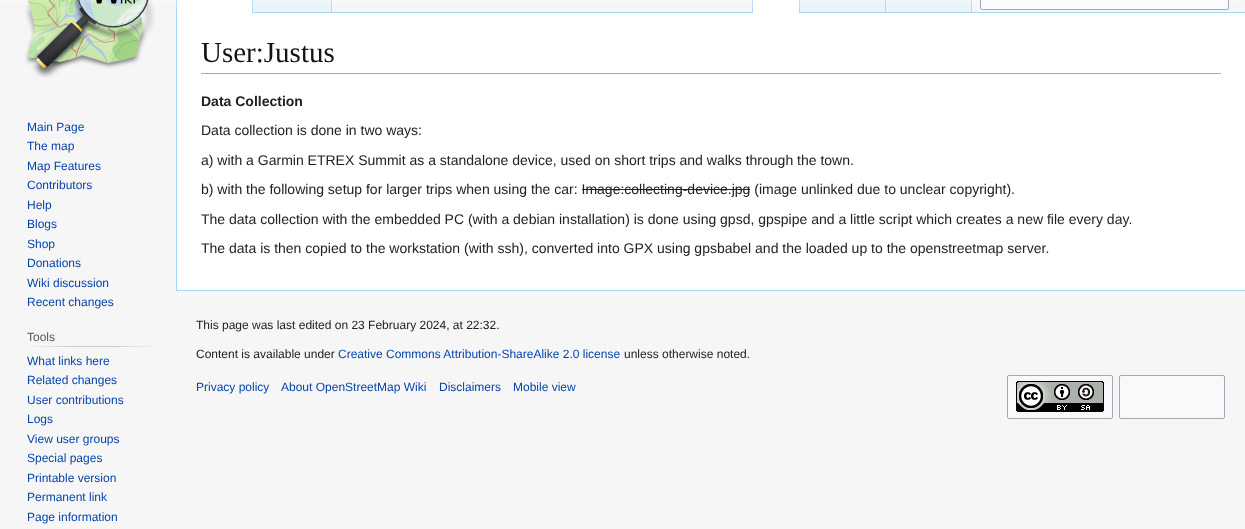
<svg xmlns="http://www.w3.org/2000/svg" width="1245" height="529">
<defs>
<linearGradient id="g1" gradientUnits="userSpaceOnUse" x1="623" y1="-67" x2="623" y2="13"><stop offset="0.5" stop-color="#fff"/><stop offset="1" stop-color="#f6f6f6"/></linearGradient>
<linearGradient id="g2" gradientUnits="userSpaceOnUse" x1="177" y1="-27" x2="177" y2="13"><stop offset="0" stop-color="#a7d7f9" stop-opacity="0"/><stop offset="1" stop-color="#a7d7f9"/></linearGradient>
<linearGradient id="g3" gradientUnits="userSpaceOnUse" x1="253" y1="-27" x2="253" y2="13"><stop offset="0" stop-color="#fff"/><stop offset="1" stop-color="#a7d7f9"/></linearGradient>
<linearGradient id="g4" gradientUnits="userSpaceOnUse" x1="293" y1="13" x2="293" y2="-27"><stop offset="0" stop-color="#77c1f6"/><stop offset="0.03" stop-color="#e8f2f8"/><stop offset="1" stop-color="#fff"/></linearGradient>
<linearGradient id="g5" gradientUnits="userSpaceOnUse" x1="332" y1="-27" x2="332" y2="13"><stop offset="0" stop-color="#a7d7f9" stop-opacity="0"/><stop offset="1" stop-color="#a7d7f9"/></linearGradient>
<linearGradient id="g6" gradientUnits="userSpaceOnUse" x1="753" y1="-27" x2="753" y2="13"><stop offset="0" stop-color="#a7d7f9" stop-opacity="0"/><stop offset="1" stop-color="#a7d7f9"/></linearGradient>
<linearGradient id="g7" gradientUnits="userSpaceOnUse" x1="800" y1="-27" x2="800" y2="13"><stop offset="0" stop-color="#fff"/><stop offset="1" stop-color="#a7d7f9"/></linearGradient>
<linearGradient id="g8" gradientUnits="userSpaceOnUse" x1="843" y1="13" x2="843" y2="-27"><stop offset="0" stop-color="#77c1f6"/><stop offset="0.03" stop-color="#e8f2f8"/><stop offset="1" stop-color="#fff"/></linearGradient>
<linearGradient id="g9" gradientUnits="userSpaceOnUse" x1="886" y1="-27" x2="886" y2="13"><stop offset="0" stop-color="#a7d7f9" stop-opacity="0"/><stop offset="1" stop-color="#a7d7f9"/></linearGradient>
<linearGradient id="g10" gradientUnits="userSpaceOnUse" x1="929" y1="13" x2="929" y2="-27"><stop offset="0" stop-color="#77c1f6"/><stop offset="0.03" stop-color="#e8f2f8"/><stop offset="1" stop-color="#fff"/></linearGradient>
<linearGradient id="g11" gradientUnits="userSpaceOnUse" x1="972" y1="-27" x2="972" y2="13"><stop offset="0" stop-color="#a7d7f9" stop-opacity="0"/><stop offset="1" stop-color="#a7d7f9"/></linearGradient>
<linearGradient id="g12" gradientUnits="userSpaceOnUse" x1="27" y1="347" x2="158" y2="347"><stop offset="0" stop-color="#f6f6f6"/><stop offset="0.33" stop-color="#c8ccd1"/><stop offset="0.66" stop-color="#c8ccd1"/><stop offset="1" stop-color="#f6f6f6"/></linearGradient>
</defs>
<rect width="100%" height="100%" fill="#f6f6f6"/>
<rect width="1245" height="2" fill="url(#g1)"/>
<rect x="176" y="290" width="1069" height="1" fill="#a7d7f9"/>
<rect x="176" y="12" width="1" height="279" fill="#a7d7f9"/>
<rect x="176" width="1" height="13" fill="url(#g2)"/>
<rect x="177" width="75" height="13" fill="#fff"/>
<rect x="252" width="1" height="13" fill="url(#g3)"/>
<rect x="253" width="79" height="13" fill="url(#g4)"/>
<rect x="331" width="1" height="13" fill="url(#g5)"/>
<rect x="332" y="12" width="913" height="1" fill="#a7d7f9"/>
<rect x="752" width="1" height="13" fill="url(#g6)"/>
<rect x="753" width="46" height="13" fill="#fff"/>
<rect x="799" width="1" height="13" fill="url(#g7)"/>
<rect x="800" width="86" height="12" fill="url(#g8)"/>
<rect x="885" width="1" height="13" fill="url(#g9)"/>
<rect x="886" width="86" height="12" fill="url(#g10)"/>
<rect x="971" width="1" height="13" fill="url(#g11)"/>
<rect x="980.5" y="-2.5" width="248" height="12" rx="1.5" fill="#fbfbfb" stroke="#a2a9b1"/>
<image x="25" y="0" width="130" height="78" href="media/1.png"/>
<text x="27" y="131" style="font-family:Liberation Sans;font-size:12px;fill:#0645ad">Main Page</text>
<text x="27" y="150" style="font-family:Liberation Sans;font-size:12px;fill:#0645ad">The map</text>
<text x="27" y="170" style="font-family:Liberation Sans;font-size:12px;fill:#0645ad">Map Features</text>
<text x="27" y="189" style="font-family:Liberation Sans;font-size:12px;fill:#0645ad">Contributors</text>
<text x="27" y="209" style="font-family:Liberation Sans;font-size:12px;fill:#0645ad">Help</text>
<text x="27" y="228" style="font-family:Liberation Sans;font-size:12px;fill:#0645ad">Blogs</text>
<text x="27" y="248" style="font-family:Liberation Sans;font-size:12px;fill:#0645ad">Shop</text>
<text x="27" y="267" style="font-family:Liberation Sans;font-size:12px;fill:#0645ad">Donations</text>
<text x="27" y="287" style="font-family:Liberation Sans;font-size:12px;fill:#0645ad">Wiki discussion</text>
<text x="27" y="306" style="font-family:Liberation Sans;font-size:12px;fill:#0645ad">Recent changes</text>
<rect x="27" y="346" width="131" height="1" fill="url(#g12)"/>
<text x="27" y="341" style="font-family:Liberation Sans;font-size:12px;fill:#54595d">Tools</text>
<text x="27" y="365" style="font-family:Liberation Sans;font-size:12px;fill:#0645ad">What links here</text>
<text x="27" y="384" style="font-family:Liberation Sans;font-size:12px;fill:#0645ad">Related changes</text>
<text x="27" y="404" style="font-family:Liberation Sans;font-size:12px;fill:#0645ad">User contributions</text>
<text x="27" y="423" style="font-family:Liberation Sans;font-size:12px;fill:#0645ad">Logs</text>
<text x="27" y="443" style="font-family:Liberation Sans;font-size:12px;fill:#0645ad">View user groups</text>
<text x="27" y="462" style="font-family:Liberation Sans;font-size:12px;fill:#0645ad">Special pages</text>
<text x="27" y="482" style="font-family:Liberation Sans;font-size:12px;fill:#0645ad">Printable version</text>
<text x="27" y="501" style="font-family:Liberation Sans;font-size:12px;fill:#0645ad">Permanent link</text>
<text x="27" y="521" style="font-family:Liberation Sans;font-size:12px;fill:#0645ad">Page information</text>
<rect x="177" y="13" width="1068" height="277" fill="#fff"/>
<rect x="201" y="73" width="1020" height="1" fill="#a2a9b1"/>
<text x="201" y="62" style="font-family:Liberation Serif;font-size:29px;fill:#101418">User:Justus</text>
<text x="201" y="106" style="font-family:Liberation Sans;font-size:14px;font-weight:bold;fill:#202122">Data Collection</text>
<text x="201" y="135" style="font-family:Liberation Sans;font-size:14px;fill:#202122">Data collection is done in two ways:</text>
<text x="201" y="165" style="font-family:Liberation Sans;font-size:14px;fill:#202122">a) with a Garmin ETREX Summit as a standalone device, used on short trips and walks through the town.</text>
<text x="201" y="194" style="font-family:Liberation Sans;font-size:14px;fill:#202122">b) with the following setup for larger trips when using the car: Image:collecting-device.jpg (image unlinked due to unclear copyright).</text>
<rect x="582" y="189" width="168" height="1" fill="#202122"/>
<text x="201" y="224" style="font-family:Liberation Sans;font-size:14px;fill:#202122">The data collection with the embedded PC (with a debian installation) is done using gpsd, gpspipe and a little script which creates a new file every day.</text>
<text x="201" y="253" style="font-family:Liberation Sans;font-size:14px;fill:#202122">The data is then copied to the workstation (with ssh), converted into GPX using gpsbabel and the loaded up to the openstreetmap server.</text>
<text x="196" y="329" style="font-family:Liberation Sans;font-size:12px;fill:#202122">This page was last edited on 23 February 2024, at 22:32.</text>
<text x="196" y="358" style="font-family:Liberation Sans;font-size:12px;fill:#202122">Content is available under</text>
<text x="338" y="358" style="font-family:Liberation Sans;font-size:12px;fill:#0645ad">Creative Commons Attribution-ShareAlike 2.0 license</text>
<text x="624" y="358" style="font-family:Liberation Sans;font-size:12px;fill:#202122">unless otherwise noted.</text>
<text x="196" y="391" style="font-family:Liberation Sans;font-size:12px;fill:#0645ad">Privacy policy</text>
<text x="281" y="391" style="font-family:Liberation Sans;font-size:12px;fill:#0645ad">About OpenStreetMap Wiki</text>
<text x="439" y="391" style="font-family:Liberation Sans;font-size:12px;fill:#0645ad">Disclaimers</text>
<text x="513" y="391" style="font-family:Liberation Sans;font-size:12px;fill:#0645ad">Mobile view</text>
<rect x="1007.5" y="375.5" width="105" height="43" rx="1.5" fill="#f8f9fa" stroke="#a2a9b1"/>
<image x="1016" y="381" width="88" height="31" href="media/2.png"/>
<rect x="1119.5" y="375.5" width="105" height="43" rx="1.5" fill="#f8f9fa" stroke="#a2a9b1"/>
</svg>
